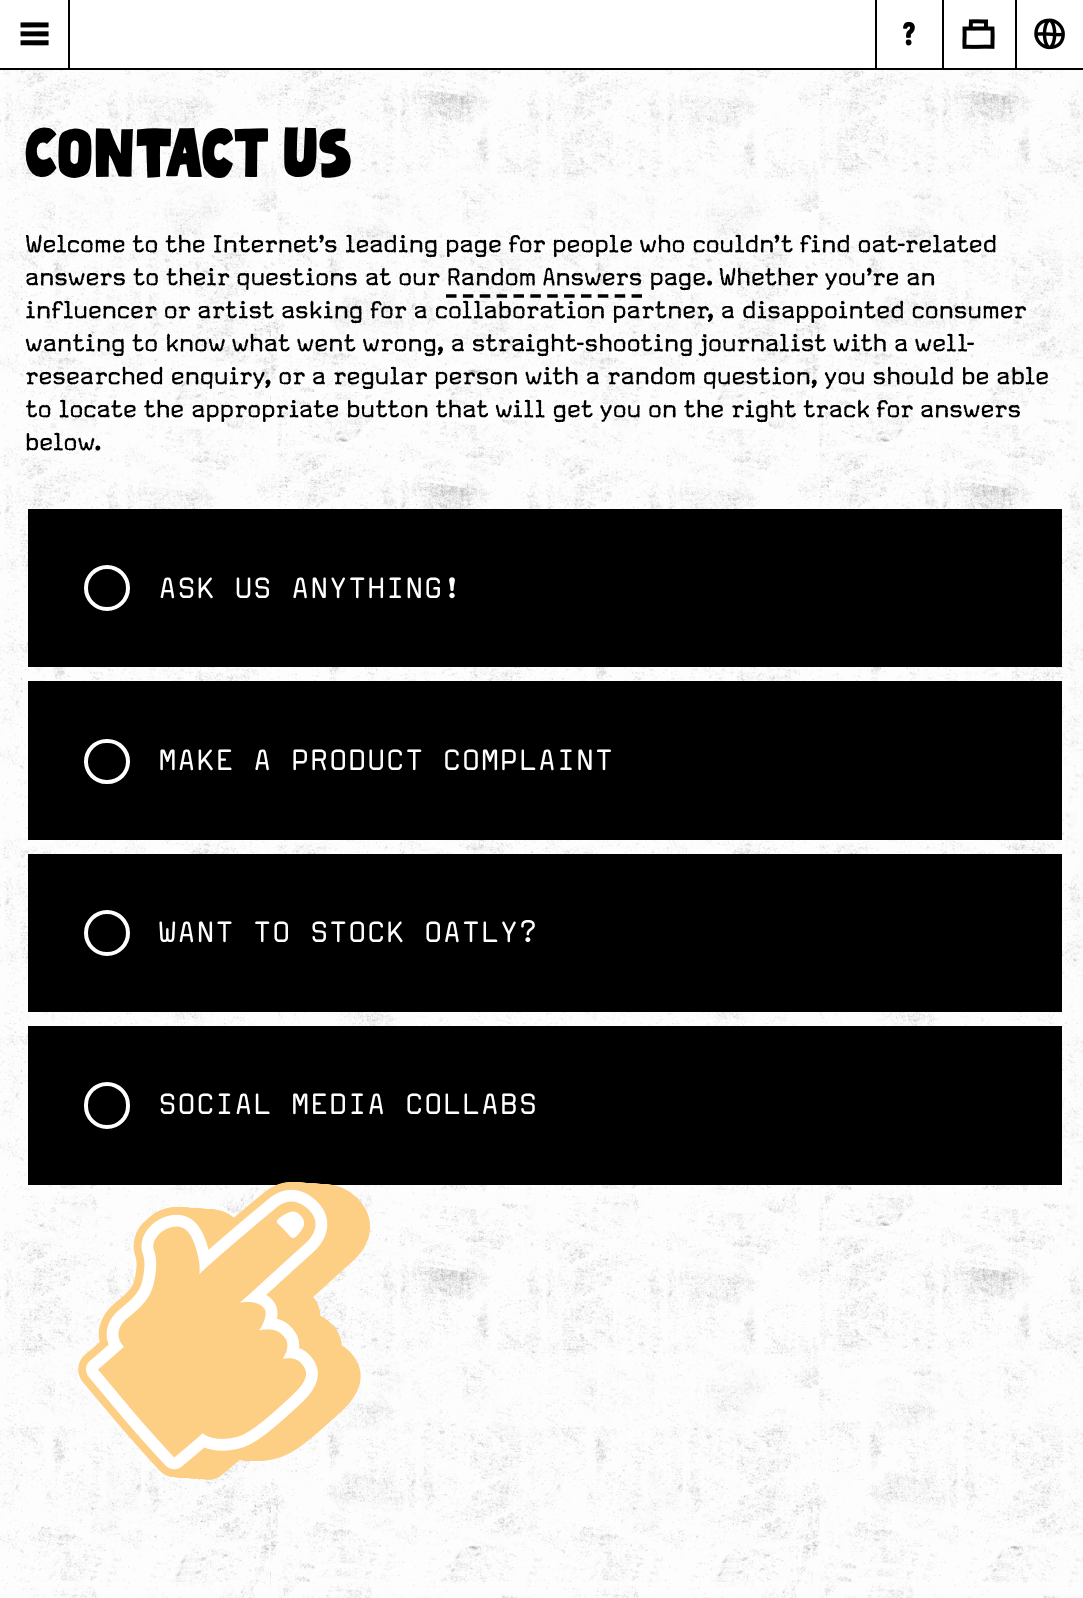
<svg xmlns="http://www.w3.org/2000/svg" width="1083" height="1598">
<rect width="100%" height="100%" fill="#fff"/>
<image x="0" y="70" width="1083" height="1528" href="media/1.png"/>
<rect x="68" width="2" height="70" fill="#000"/>
<rect y="68" width="1083" height="2" fill="#000"/>
<image x="20" y="22" width="29" height="24" href="media/2.png"/>
<rect x="875" width="2" height="68" fill="#000"/>
<image x="903" y="21" width="12" height="25" href="media/3.png"/>
<rect x="942" width="2" height="68" fill="#000"/>
<image x="962" y="19" width="33" height="30" href="media/4.png"/>
<rect x="1015" width="2" height="68" fill="#000"/>
<image x="1034" y="18" width="31" height="32" href="media/5.png"/>
<text x="25" y="177" style="font-family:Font;font-size:73.5px;fill:#000">CONTACT US</text>
<text x="25" y="252" style="font-family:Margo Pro;font-size:27.55px;fill:#000">Welcome to the Internet’s leading page for people who couldn’t find oat-related</text>
<text x="25" y="285" style="font-family:Margo Pro;font-size:27.55px;fill:#000">answers to their questions at our Random Answers page. Whether you’re an</text>
<path d="M446 296h196" fill="none" stroke="#000" stroke-width="3.5" stroke-dasharray="10.5 6.37"/>
<text x="25" y="318" style="font-family:Margo Pro;font-size:27.55px;fill:#000">influencer or artist asking for a collaboration partner, a disappointed consumer</text>
<text x="25" y="351" style="font-family:Margo Pro;font-size:27.55px;fill:#000">wanting to know what went wrong, a straight-shooting journalist with a well-</text>
<text x="25" y="384" style="font-family:Margo Pro;font-size:27.55px;fill:#000">researched enquiry, or a regular person with a random question, you should be able</text>
<text x="25" y="417" style="font-family:Margo Pro;font-size:27.55px;fill:#000">to locate the appropriate button that will get you on the right track for answers</text>
<text x="25" y="450" style="font-family:Margo Pro;font-size:27.55px;fill:#000">below.</text>
<rect x="28" y="509" width="1034" height="158" fill="#000"/>
<circle cx="107" cy="588" r="21" fill="none" stroke="#fff" stroke-width="4"/>
<text x="158" y="598" style="font-family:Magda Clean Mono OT;font-size:34.5px;fill:#fff">ASK US ANYTHING!</text>
<rect x="28" y="681" width="1034" height="159" fill="#000"/>
<rect x="86" y="741" width="42" height="41" rx="20.5" fill="none" stroke="#fff" stroke-width="4"/>
<text x="158" y="770" style="font-family:Magda Clean Mono OT;font-size:34.5px;fill:#fff">MAKE A PRODUCT COMPLAINT</text>
<rect x="28" y="854" width="1034" height="158" fill="#000"/>
<circle cx="107" cy="933" r="21" fill="none" stroke="#fff" stroke-width="4"/>
<text x="158" y="942" style="font-family:Magda Clean Mono OT;font-size:34.5px;fill:#fff">WANT TO STOCK OATLY?</text>
<rect x="28" y="1026" width="1034" height="159" fill="#000"/>
<rect x="86" y="1084" width="42" height="43" rx="21" fill="none" stroke="#fff" stroke-width="4"/>
<text x="158" y="1114" style="font-family:Magda Clean Mono OT;font-size:34.5px;fill:#fff">SOCIAL MEDIA COLLABS</text>
<image x="78" y="1182" width="293" height="298" href="media/6.png"/>
</svg>
